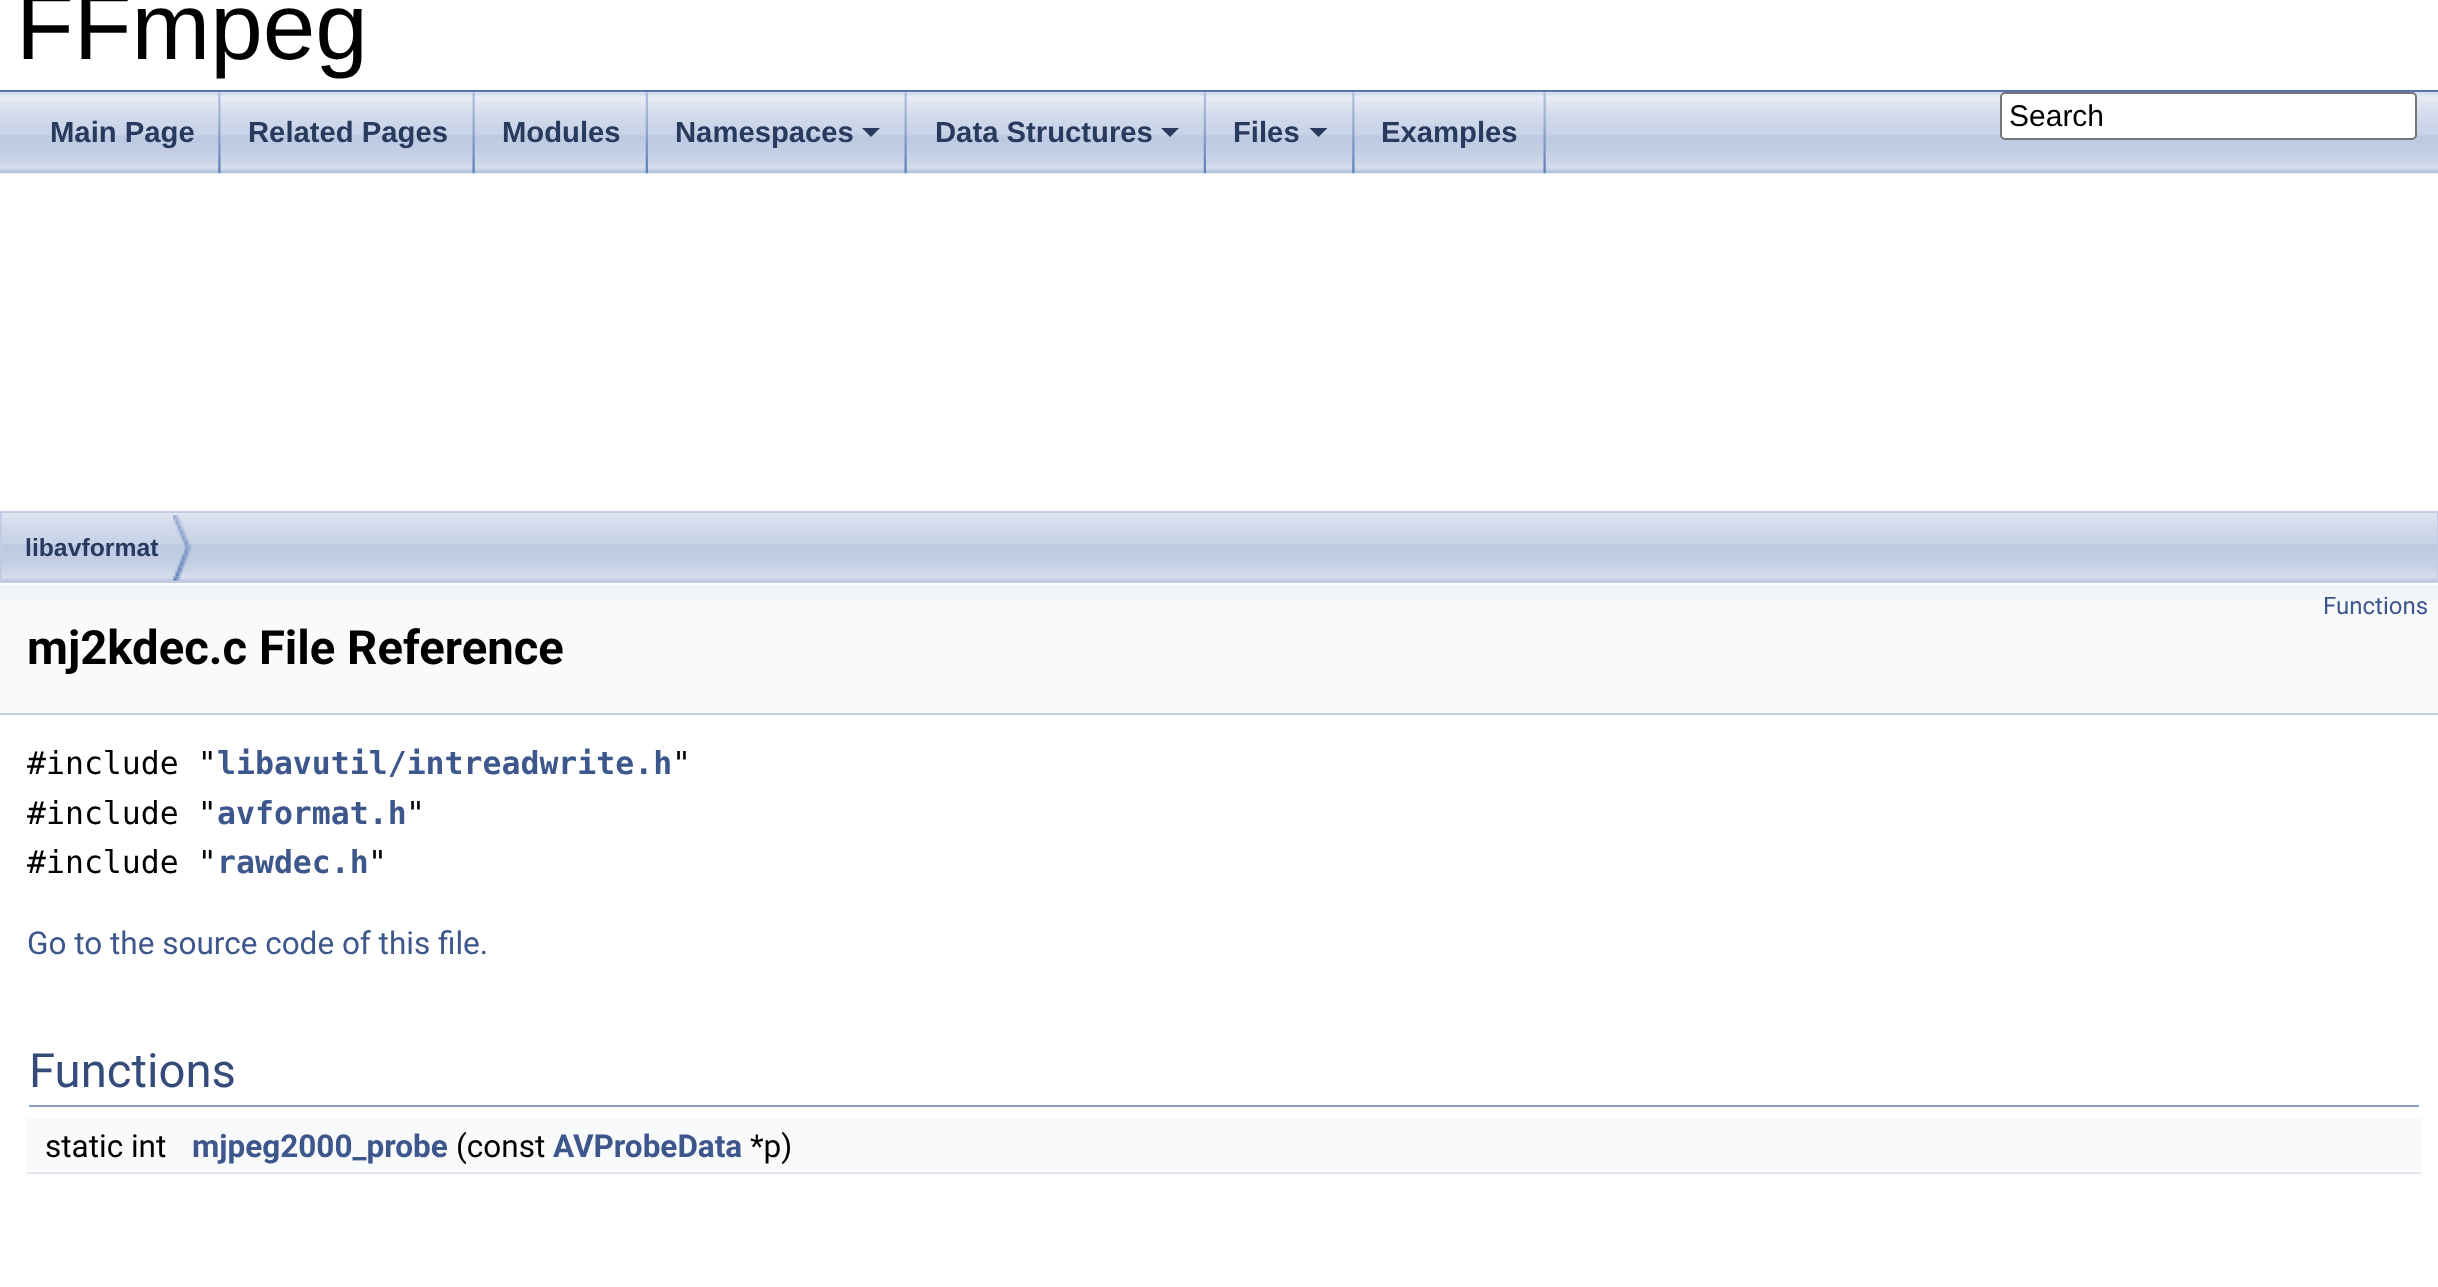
<svg xmlns="http://www.w3.org/2000/svg" width="2438" height="1287">
<rect width="100%" height="100%" fill="#fff"/>
<rect y="90" width="2438" height="2" fill="#5373b4"/>
<text x="16" y="59" style="font-family:Liberation Sans;font-size:94.5px;fill:#000">FFmpeg</text>
<image x="0" y="92" width="2438" height="82" href="media/1.png"/>
<rect x="2001" y="93" width="415" height="46" rx="4" fill="#fff" stroke="#767676" stroke-width="2"/>
<text x="2009" y="126" style="font-family:Liberation Sans;font-size:30px;fill:#000">Search</text>
<image x="218" y="92" width="3" height="82" href="media/2.png"/>
<text x="50" y="142" style="font-family:Liberation Sans;font-size:29.25px;font-weight:bold;fill:#283a5d">Main Page</text>
<image x="472" y="92" width="3" height="82" href="media/3.png"/>
<text x="248" y="142" style="font-family:Liberation Sans;font-size:29.25px;font-weight:bold;fill:#283a5d">Related Pages</text>
<image x="645" y="92" width="3" height="82" href="media/4.png"/>
<text x="502" y="142" style="font-family:Liberation Sans;font-size:29.25px;font-weight:bold;fill:#283a5d">Modules</text>
<image x="904" y="92" width="3" height="82" href="media/3.png"/>
<text x="675" y="142" style="font-family:Liberation Sans;font-size:29.25px;font-weight:bold;fill:#283a5d">Namespaces</text>
<path d="M862 128h18l-9 9z" fill="#283a5d"/>
<image x="1203" y="92" width="3" height="82" href="media/4.png"/>
<text x="935" y="142" style="font-family:Liberation Sans;font-size:29.25px;font-weight:bold;fill:#283a5d">Data Structures</text>
<path d="M1161 128h18l-9 9z" fill="#283a5d"/>
<image x="1352" y="92" width="3" height="82" href="media/2.png"/>
<text x="1233" y="142" style="font-family:Liberation Sans;font-size:29.25px;font-weight:bold;fill:#283a5d">Files</text>
<path d="M1309.5 128h18l-9 9z" fill="#283a5d"/>
<image x="1543" y="92" width="3" height="82" href="media/3.png"/>
<text x="1381" y="142" style="font-family:Liberation Sans;font-size:29.25px;font-weight:bold;fill:#283a5d">Examples</text>
<image x="0" y="510" width="2438" height="71" href="media/5.png"/>
<rect x="1" y="512" width="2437" height="70" fill="none" stroke="#c2cde4" stroke-width="2"/>
<image x="173" y="515" width="19" height="66" href="media/6.png"/>
<text x="25" y="556" style="font-family:Liberation Sans;font-size:24.75px;font-weight:bold;fill:#283a5d">libavformat</text>
<rect y="601" width="2438" height="115" fill="#f9fafc"/>
<image x="0" y="583" width="2438" height="18" href="media/7.png"/>
<rect y="713" width="2438" height="2" fill="#c4cfe5"/>
<text x="2323" y="614" style="font-family:Roboto;font-size:24px;fill:#3d578c">Functions</text>
<text x="27" y="664" style="font-family:Roboto;font-size:47.25px;font-weight:bold;fill:#000">mj2kdec.c File Reference</text>
<text x="27" y="774" style="font-family:DejaVu Sans Mono;font-size:31.5px;fill:#000">#include "</text>
<text x="217" y="774" style="font-family:DejaVu Sans Mono;font-size:31.5px;font-weight:bold;fill:#3d578c">libavutil/intreadwrite.h</text>
<text x="672" y="774" style="font-family:DejaVu Sans Mono;font-size:31.5px;fill:#000">"</text>
<text x="27" y="824" style="font-family:DejaVu Sans Mono;font-size:31.5px;fill:#000">#include "</text>
<text x="217" y="824" style="font-family:DejaVu Sans Mono;font-size:31.5px;font-weight:bold;fill:#3d578c">avformat.h</text>
<text x="406" y="824" style="font-family:DejaVu Sans Mono;font-size:31.5px;fill:#000">"</text>
<text x="27" y="873" style="font-family:DejaVu Sans Mono;font-size:31.5px;fill:#000">#include "</text>
<text x="217" y="873" style="font-family:DejaVu Sans Mono;font-size:31.5px;font-weight:bold;fill:#3d578c">rawdec.h</text>
<text x="368" y="873" style="font-family:DejaVu Sans Mono;font-size:31.5px;fill:#000">"</text>
<text x="27" y="954" style="font-family:Roboto;font-size:31.5px;fill:#3d578c">Go to the source code of this file.</text>
<rect x="29" y="1105" width="2390" height="2" fill="#879ecb"/>
<text x="29" y="1087" style="font-family:Roboto;font-size:47.25px;fill:#354c7b">Functions</text>
<rect x="27" y="1118" width="2394" height="52" fill="#f9fafc"/>
<text x="45" y="1157" style="font-family:Roboto;font-size:31.5px;fill:#000">static int</text>
<text x="192" y="1157" style="font-family:Roboto;font-size:31.5px;font-weight:bold;fill:#3d578c">mjpeg2000_probe</text>
<text x="456" y="1157" style="font-family:Roboto;font-size:31.5px;fill:#000">(const</text>
<text x="553" y="1157" style="font-family:Roboto;font-size:31.5px;font-weight:bold;fill:#3d578c">AVProbeData</text>
<text x="750" y="1157" style="font-family:Roboto;font-size:31.5px;fill:#000">*p)</text>
<rect x="27" y="1172" width="2394" height="2" fill="#dee4f0"/>
</svg>
